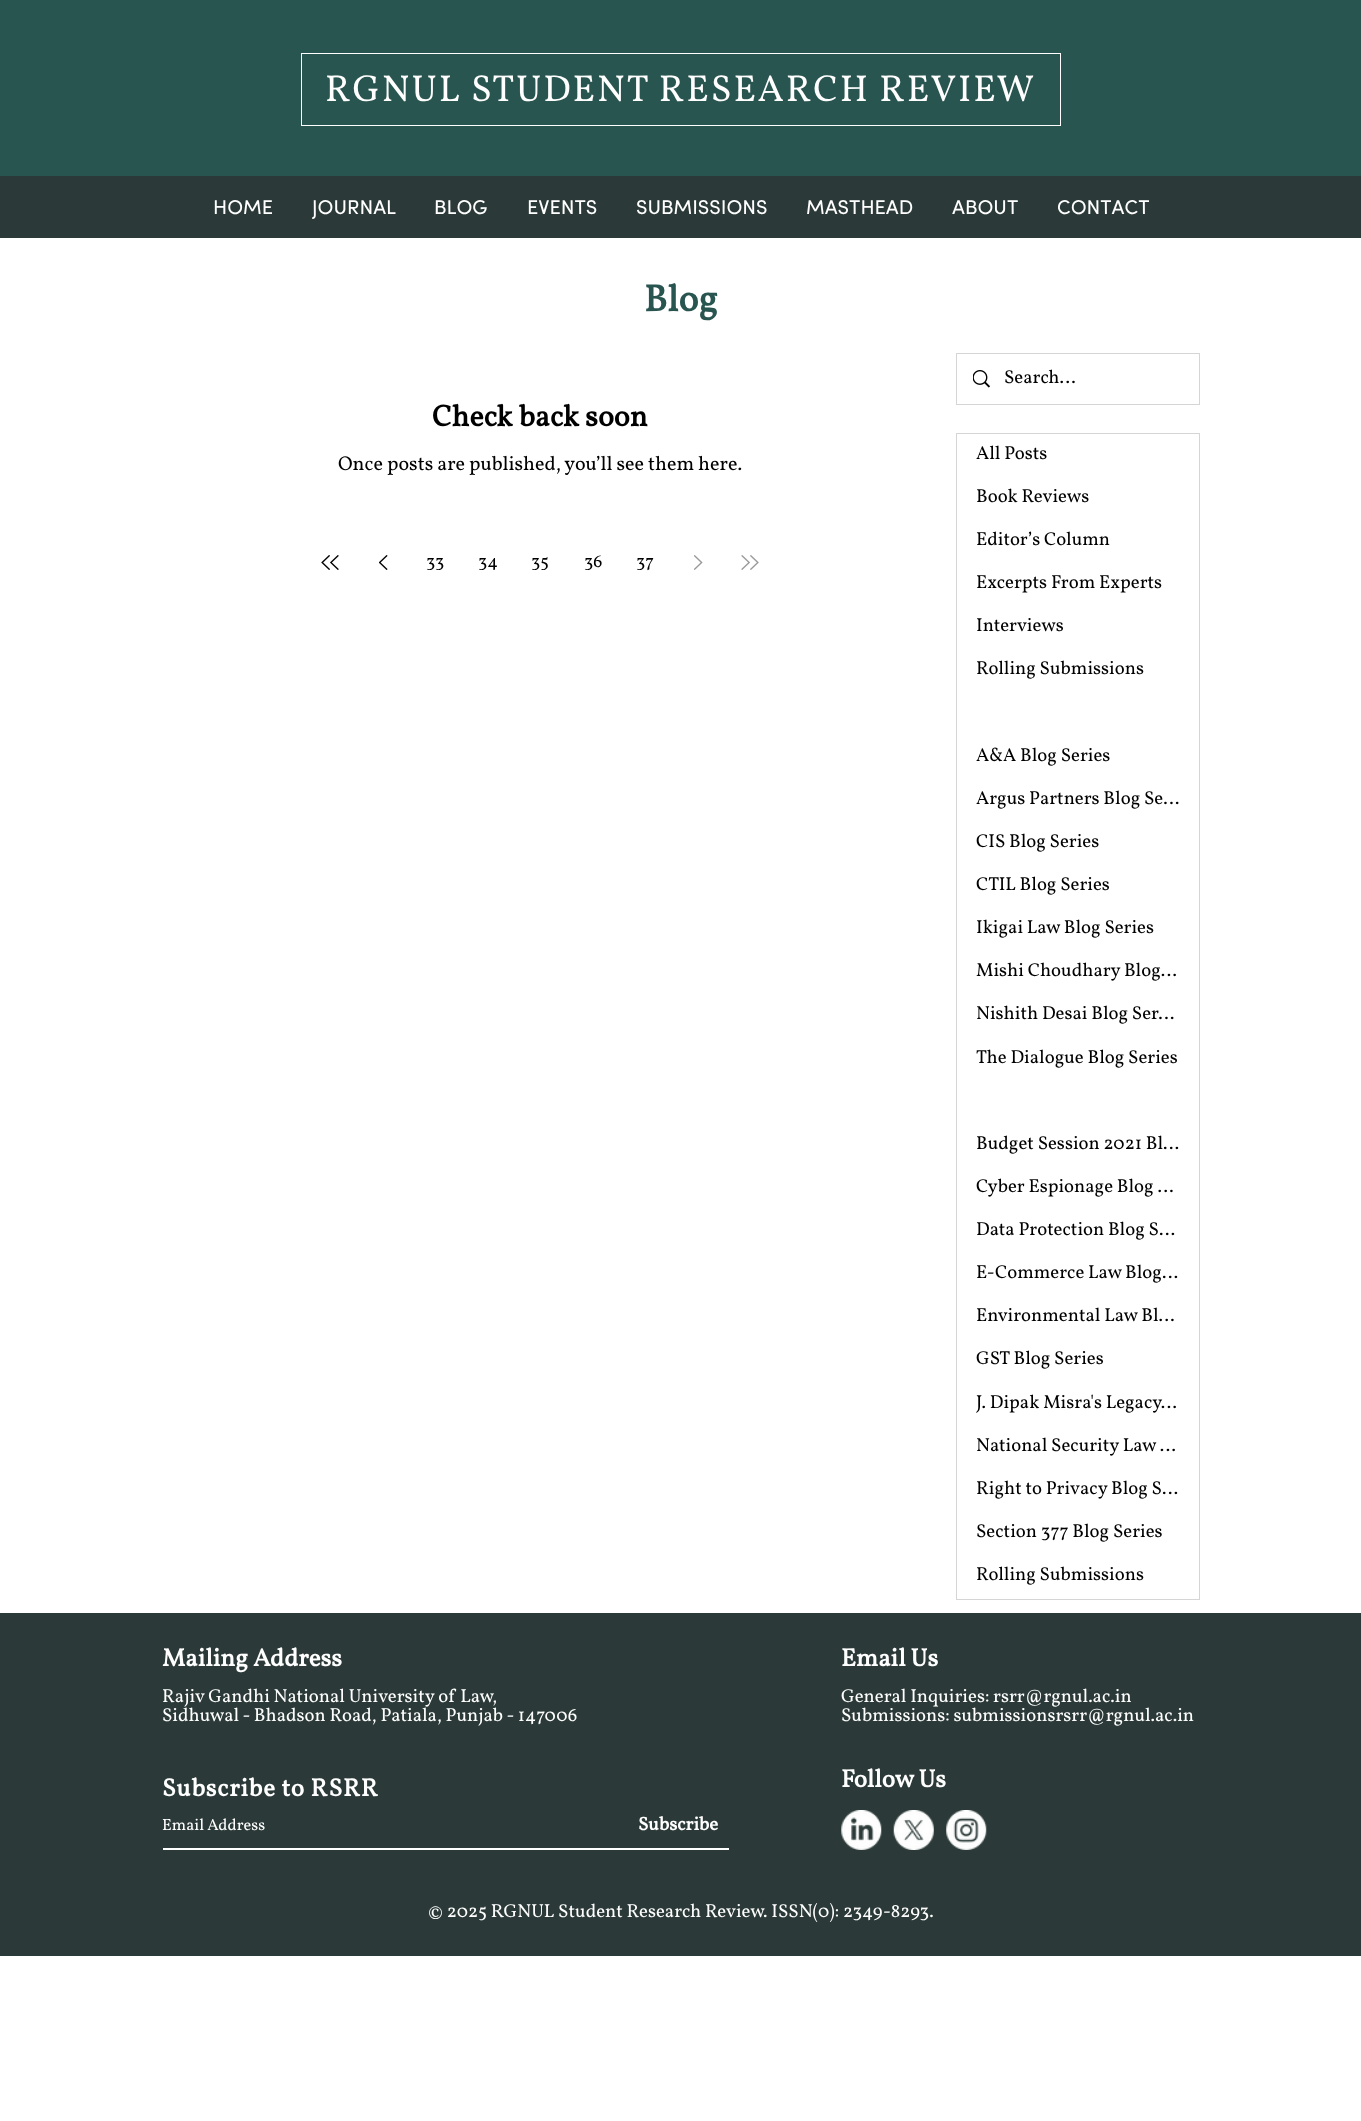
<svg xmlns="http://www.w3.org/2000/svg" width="1361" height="2121">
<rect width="100%" height="100%" fill="#fff"/>
<rect width="1361" height="176" fill="#295550"/>
<rect x="301.5" y="53.5" width="759" height="72" fill="none" stroke="#fff"/>
<text x="325" y="101" style="font-family:Vollkorn;font-size:37.5px;letter-spacing:1.9px;fill:#fff">RGNUL STUDENT RESEARCH REVIEW</text>
<rect y="176" width="1361" height="62" fill="#2b3a38"/>
<text x="213" y="214" style="font-family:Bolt;font-size:20px;fill:#fff">HOME</text>
<text x="312" y="214" style="font-family:Bolt;font-size:20px;fill:#fff">JOURNAL</text>
<text x="434" y="214" style="font-family:Bolt;font-size:20px;fill:#fff">BLOG</text>
<text x="527" y="214" style="font-family:Bolt;font-size:20px;fill:#fff">EVENTS</text>
<text x="636" y="214" style="font-family:Bolt;font-size:20px;fill:#fff">SUBMISSIONS</text>
<text x="806" y="214" style="font-family:Bolt;font-size:20px;fill:#fff">MASTHEAD</text>
<text x="952" y="214" style="font-family:Bolt;font-size:20px;fill:#fff">ABOUT</text>
<text x="1057" y="214" style="font-family:Bolt;font-size:20px;fill:#fff">CONTACT</text>
<text x="644" y="311" style="font-family:Vollkorn;font-size:37.5px;font-weight:bold;fill:#295550">Blog</text>
<rect x="956.5" y="353.5" width="243" height="51" fill="none" stroke="#d5d5d5"/>
<image x="973" y="370" width="17" height="18" href="media/1.png"/>
<text x="1004" y="383" style="font-family:Vollkorn;font-size:18.75px;fill:#000">Search...</text>
<text x="432" y="426" style="font-family:Vollkorn;font-size:30px;font-weight:bold;fill:#000">Check back soon</text>
<text x="338" y="470" style="font-family:Vollkorn;font-size:20px;fill:#000">Once posts are published, you’ll see them here.</text>
<image x="321" y="555" width="9" height="15" href="media/2.png"/>
<image x="330" y="555" width="9" height="15" href="media/3.png"/>
<image x="379" y="555" width="9" height="15" href="media/4.png"/>
<text x="426" y="567" style="font-family:Vollkorn;font-size:18px;fill:#000">33</text>
<text x="478" y="567" style="font-family:Vollkorn;font-size:18px;fill:#000">34</text>
<text x="531" y="567" style="font-family:Vollkorn;font-size:18px;fill:#000">35</text>
<text x="584" y="567" style="font-family:Vollkorn;font-size:18px;fill:#000">36</text>
<text x="636" y="567" style="font-family:Vollkorn;font-size:18px;fill:#000">37</text>
<image x="694" y="555" width="9" height="15" href="media/5.png"/>
<image x="741" y="555" width="9" height="15" href="media/6.png"/>
<image x="750" y="555" width="9" height="15" href="media/7.png"/>
<rect x="956.5" y="433.5" width="243" height="1166" fill="none" stroke="#d5d5d5"/>
<text x="976" y="459" style="font-family:Vollkorn;font-size:18.75px;fill:#000">All Posts</text>
<text x="976" y="502" style="font-family:Vollkorn;font-size:18.75px;fill:#000">Book Reviews</text>
<text x="976" y="545" style="font-family:Vollkorn;font-size:18.75px;fill:#000">Editor’s Column</text>
<text x="976" y="588" style="font-family:Vollkorn;font-size:18.75px;fill:#000">Excerpts From Experts</text>
<text x="976" y="631" style="font-family:Vollkorn;font-size:18.75px;fill:#000">Interviews</text>
<text x="976" y="674" style="font-family:Vollkorn;font-size:18.75px;fill:#000">Rolling Submissions</text>
<text x="976" y="761" style="font-family:Vollkorn;font-size:18.75px;fill:#000">A&amp;A Blog Series</text>
<text x="976" y="804" style="font-family:Vollkorn;font-size:18.75px;fill:#000">Argus Partners Blog Se…</text>
<text x="976" y="847" style="font-family:Vollkorn;font-size:18.75px;fill:#000">CIS Blog Series</text>
<text x="976" y="890" style="font-family:Vollkorn;font-size:18.75px;fill:#000">CTIL Blog Series</text>
<text x="976" y="933" style="font-family:Vollkorn;font-size:18.75px;fill:#000">Ikigai Law Blog Series</text>
<text x="976" y="976" style="font-family:Vollkorn;font-size:18.75px;fill:#000">Mishi Choudhary Blog…</text>
<text x="976" y="1019" style="font-family:Vollkorn;font-size:18.75px;fill:#000">Nishith Desai Blog Ser…</text>
<text x="976" y="1063" style="font-family:Vollkorn;font-size:18.75px;fill:#000">The Dialogue Blog Series</text>
<text x="976" y="1149" style="font-family:Vollkorn;font-size:18.75px;fill:#000">Budget Session 2021 Bl…</text>
<text x="976" y="1192" style="font-family:Vollkorn;font-size:18.75px;fill:#000">Cyber Espionage Blog …</text>
<text x="976" y="1235" style="font-family:Vollkorn;font-size:18.75px;fill:#000">Data Protection Blog S…</text>
<text x="976" y="1278" style="font-family:Vollkorn;font-size:18.75px;fill:#000">E-Commerce Law Blog…</text>
<text x="976" y="1321" style="font-family:Vollkorn;font-size:18.75px;fill:#000">Environmental Law Bl…</text>
<text x="976" y="1364" style="font-family:Vollkorn;font-size:18.75px;fill:#000">GST Blog Series</text>
<text x="976" y="1408" style="font-family:Vollkorn;font-size:18.75px;fill:#000">J. Dipak Misra's Legacy…</text>
<text x="976" y="1451" style="font-family:Vollkorn;font-size:18.75px;fill:#000">National Security Law …</text>
<text x="976" y="1494" style="font-family:Vollkorn;font-size:18.75px;fill:#000">Right to Privacy Blog S…</text>
<text x="976" y="1537" style="font-family:Vollkorn;font-size:18.75px;fill:#000">Section 377 Blog Series</text>
<text x="976" y="1580" style="font-family:Vollkorn;font-size:18.75px;fill:#000">Rolling Submissions</text>
<rect y="1613" width="1361" height="343" fill="#2b3a38"/>
<text x="162" y="1666" style="font-family:Vollkorn;font-size:25px;font-weight:bold;fill:#fff">Mailing Address</text>
<text x="841" y="1666" style="font-family:Vollkorn;font-size:25px;font-weight:bold;fill:#fff">Email Us</text>
<text x="162" y="1702" style="font-family:Vollkorn;font-size:18.75px;fill:#fff">Rajiv Gandhi National University of Law,</text>
<text x="162" y="1721" style="font-family:Vollkorn;font-size:18.75px;fill:#fff">Sidhuwal - Bhadson Road, Patiala, Punjab - 147006</text>
<text x="841" y="1702" style="font-family:Vollkorn;font-size:18.75px;fill:#fff">General Inquiries: rsrr@rgnul.ac.in</text>
<text x="841" y="1721" style="font-family:Vollkorn;font-size:18.75px;fill:#fff">Submissions: submissionsrsrr@rgnul.ac.in</text>
<text x="162" y="1796" style="font-family:Vollkorn;font-size:25px;font-weight:bold;letter-spacing:0.75px;fill:#fff">Subscribe to RSRR</text>
<path d="M163 1848v2h566v-42v40z" fill="#fff"/>
<text x="162" y="1830" style="font-family:Vollkorn;font-size:16.25px;fill:#fff">Email Address</text>
<text x="638" y="1830" style="font-family:Vollkorn;font-size:18.75px;font-weight:bold;fill:#fff">Subscribe</text>
<text x="841" y="1787" style="font-family:Vollkorn;font-size:25px;font-weight:bold;fill:#fff">Follow Us</text>
<image x="841" y="1810" width="41" height="40" href="media/8.png"/>
<image x="893" y="1810" width="41" height="40" href="media/9.png"/>
<image x="946" y="1810" width="41" height="40" href="media/10.png"/>
<text x="428" y="1917" style="font-family:Vollkorn;font-size:18.75px;fill:#fff">© 2025 RGNUL Student Research Review. ISSN(0): 2349-8293.</text>
</svg>
